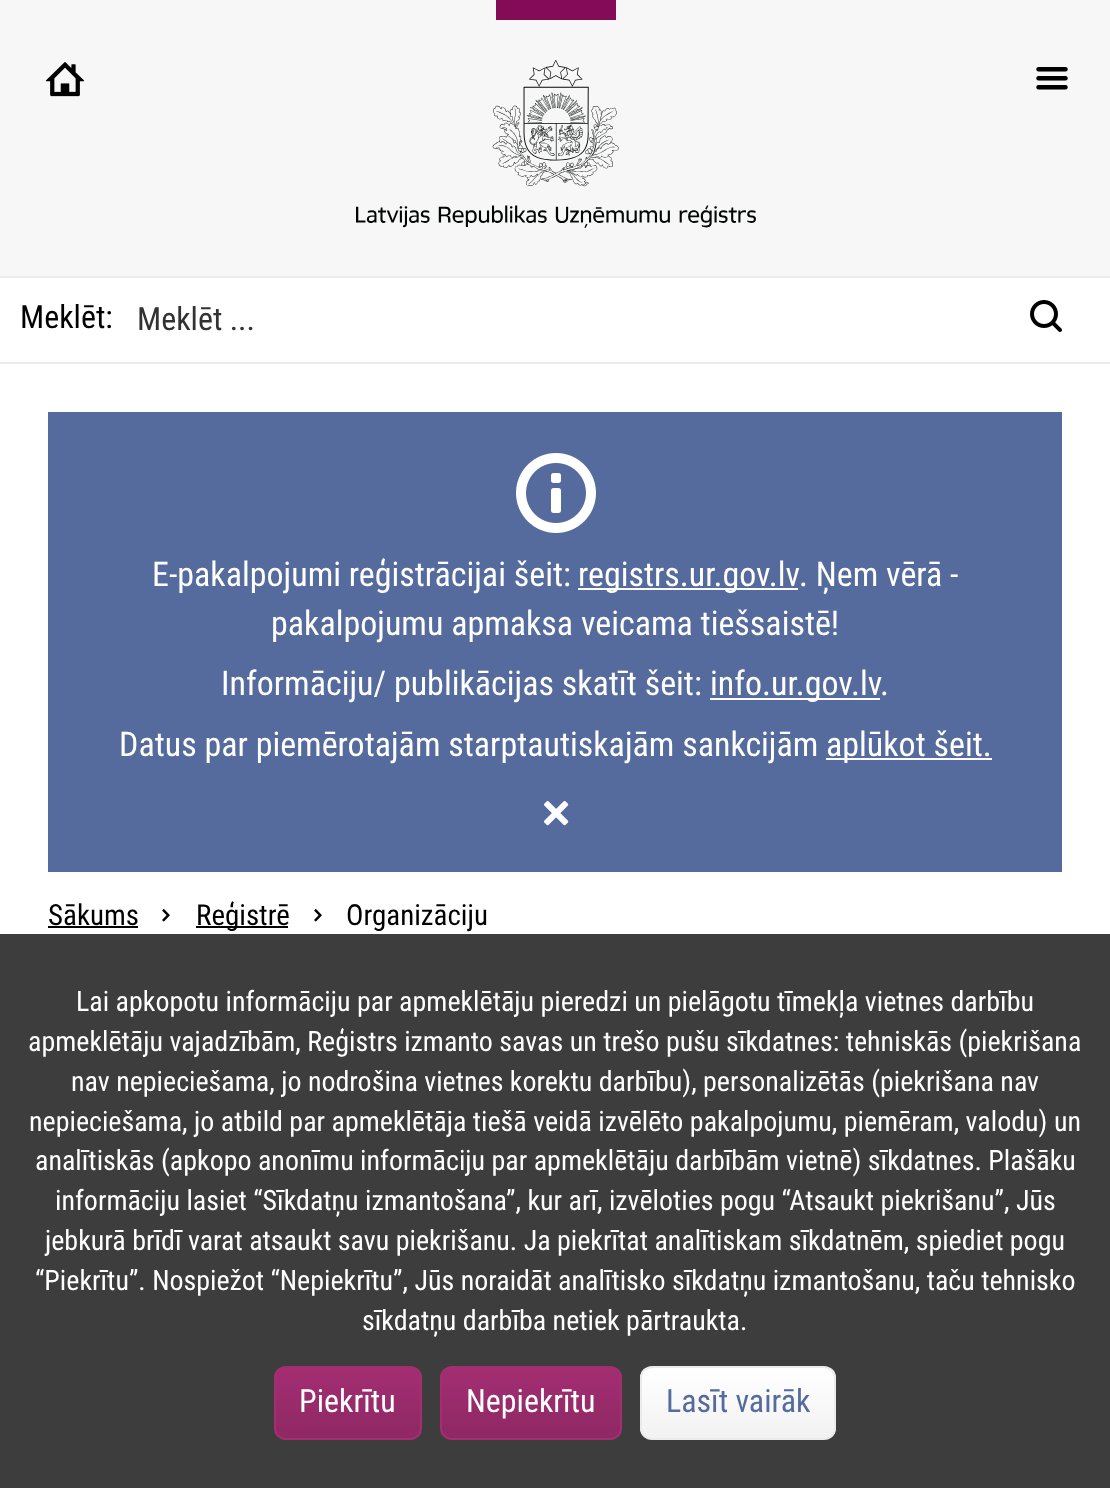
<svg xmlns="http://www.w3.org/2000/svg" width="1110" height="1488">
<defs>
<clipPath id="clip1"><rect x="274" y="1366" width="148" height="74" rx="12"/></clipPath>
<linearGradient id="g1" gradientUnits="userSpaceOnUse" x1="348" y1="1368" x2="348" y2="1438"><stop offset="0" stop-color="#a32e72"/><stop offset="1" stop-color="#8f2864"/></linearGradient>
<clipPath id="clip2"><rect x="440" y="1366" width="182" height="74" rx="12"/></clipPath>
<linearGradient id="g2" gradientUnits="userSpaceOnUse" x1="531" y1="1368" x2="531" y2="1438"><stop offset="0" stop-color="#a32e72"/><stop offset="1" stop-color="#8f2864"/></linearGradient>
<clipPath id="clip3"><rect x="640" y="1366" width="196" height="74" rx="12"/></clipPath>
<linearGradient id="g3" gradientUnits="userSpaceOnUse" x1="738" y1="1368" x2="738" y2="1438"><stop offset="0" stop-color="#fff"/><stop offset="1" stop-color="#f2f2f2"/></linearGradient>
</defs>
<rect width="100%" height="100%" fill="#f7f7f7"/>
<rect x="496" width="120" height="20" fill="#840b55"/>
<image x="45" y="62" width="40" height="35" href="media/1.png"/>
<image x="356" y="60" width="400" height="168" href="media/2.png"/>
<rect y="278" width="1110" height="84" fill="#fff"/>
<rect y="276" width="1110" height="2" fill="#ebebeb"/>
<rect y="362" width="1110" height="2" fill="#ebebeb"/>
<image x="1036" y="67" width="32" height="23" href="media/3.png"/>
<text x="20" y="328" style="font-family:Roboto Condensed;font-size:32px;fill:#000">Meklēt:</text>
<text x="137" y="330" style="font-family:Roboto Condensed;font-size:32px;fill:#323232">Meklēt ...</text>
<image x="1030" y="300" width="32" height="32" href="media/4.png"/>
<rect y="364" width="1110" height="570" fill="#fff"/>
<rect x="48" y="412" width="1014" height="460" fill="#556b9d"/>
<image x="516" y="453" width="80" height="80" href="media/5.png"/>
<text x="152" y="586" style="font-family:Roboto Condensed;font-size:34px;fill:#fff">E-pakalpojumi reģistrācijai šeit:</text>
<rect x="578" y="588" width="220" height="2" fill="#fff"/>
<text x="578" y="586" style="font-family:Roboto Condensed;font-size:34px;fill:#fff">registrs.ur.gov.lv</text>
<text x="799" y="586" style="font-family:Roboto Condensed;font-size:34px;fill:#fff">. Ņem vērā -</text>
<text x="271" y="635" style="font-family:Roboto Condensed;font-size:34px;fill:#fff">pakalpojumu apmaksa veicama tiešsaistē!</text>
<text x="221" y="695" style="font-family:Roboto Condensed;font-size:34px;fill:#fff">Informāciju/ publikācijas skatīt šeit:</text>
<rect x="710" y="698" width="170" height="2" fill="#fff"/>
<text x="710" y="695" style="font-family:Roboto Condensed;font-size:34px;fill:#fff">info.ur.gov.lv</text>
<text x="880" y="695" style="font-family:Roboto Condensed;font-size:34px;fill:#fff">.</text>
<text x="119" y="756" style="font-family:Roboto Condensed;font-size:34px;fill:#fff">Datus par piemērotajām starptautiskajām sankcijām</text>
<rect x="826" y="758" width="166" height="2" fill="#fff"/>
<text x="826" y="756" style="font-family:Roboto Condensed;font-size:34px;fill:#fff">aplūkot šeit.</text>
<image x="544" y="801" width="25" height="25" href="media/6.png"/>
<text x="48" y="925" style="font-family:Roboto Condensed;font-size:29px;fill:#000">Sākums</text>
<rect x="48" y="926" width="90" height="2" fill="#000"/>
<image x="162" y="909" width="8" height="13" href="media/7.png"/>
<rect x="196" y="926" width="92" height="2" fill="#000"/>
<text x="196" y="925" style="font-family:Roboto Condensed;font-size:29px;fill:#000">Reģistrē</text>
<image x="314" y="909" width="8" height="13" href="media/7.png"/>
<text x="346" y="925" style="font-family:Roboto Condensed;font-size:29px;fill:#000">Organizāciju</text>
<rect y="934" width="1110" height="554" fill="#3d3d3d"/>
<text x="76" y="1011" style="font-family:Roboto Condensed;font-size:28px;fill:#fff">Lai apkopotu informāciju par apmeklētāju pieredzi un pielāgotu tīmekļa vietnes darbību</text>
<text x="28" y="1051" style="font-family:Roboto Condensed;font-size:28px;fill:#fff">apmeklētāju vajadzībām, Reģistrs izmanto savas un trešo pušu sīkdatnes: tehniskās (piekrišana</text>
<text x="71" y="1091" style="font-family:Roboto Condensed;font-size:28px;fill:#fff">nav nepieciešama, jo nodrošina vietnes korektu darbību), personalizētās (piekrišana nav</text>
<text x="29" y="1131" style="font-family:Roboto Condensed;font-size:28px;fill:#fff">nepieciešama, jo atbild par apmeklētāja tiešā veidā izvēlēto pakalpojumu, piemēram, valodu) un</text>
<text x="35" y="1170" style="font-family:Roboto Condensed;font-size:28px;fill:#fff">analītiskās (apkopo anonīmu informāciju par apmeklētāju darbībām vietnē) sīkdatnes. Plašāku</text>
<text x="55" y="1210" style="font-family:Roboto Condensed;font-size:28px;fill:#fff">informāciju lasiet “Sīkdatņu izmantošana”, kur arī, izvēloties pogu “Atsaukt piekrišanu”, Jūs</text>
<text x="45" y="1250" style="font-family:Roboto Condensed;font-size:28px;fill:#fff">jebkurā brīdī varat atsaukt savu piekrišanu. Ja piekrītat analītiskam sīkdatnēm, spiediet pogu</text>
<text x="35" y="1290" style="font-family:Roboto Condensed;font-size:28px;fill:#fff">“Piekrītu”. Nospiežot “Nepiekrītu”, Jūs noraidāt analītisko sīkdatņu izmantošanu, taču tehnisko</text>
<text x="362" y="1330" style="font-family:Roboto Condensed;font-size:28px;fill:#fff">sīkdatņu darbība netiek pārtraukta.</text>
<g clip-path="url(#clip1)">
<rect x="274" y="1368" width="148" height="70" fill="url(#g1)"/>
</g>
<rect x="275" y="1367" width="146" height="72" rx="11" fill="none" stroke="#a32e72" stroke-width="2"/>
<text x="299" y="1412" style="font-family:Roboto Condensed;font-size:32px;fill:#fff">Piekrītu</text>
<g clip-path="url(#clip2)">
<rect x="440" y="1368" width="182" height="70" fill="url(#g2)"/>
</g>
<rect x="441" y="1367" width="180" height="72" rx="11" fill="none" stroke="#a32e72" stroke-width="2"/>
<text x="466" y="1412" style="font-family:Roboto Condensed;font-size:32px;fill:#fff">Nepiekrītu</text>
<g clip-path="url(#clip3)">
<rect x="640" y="1368" width="196" height="70" fill="url(#g3)"/>
</g>
<rect x="641" y="1367" width="194" height="72" rx="11" fill="none" stroke="#ebebeb" stroke-width="2"/>
<text x="666" y="1412" style="font-family:Roboto Condensed;font-size:32px;fill:#556b9d">Lasīt vairāk</text>
</svg>
